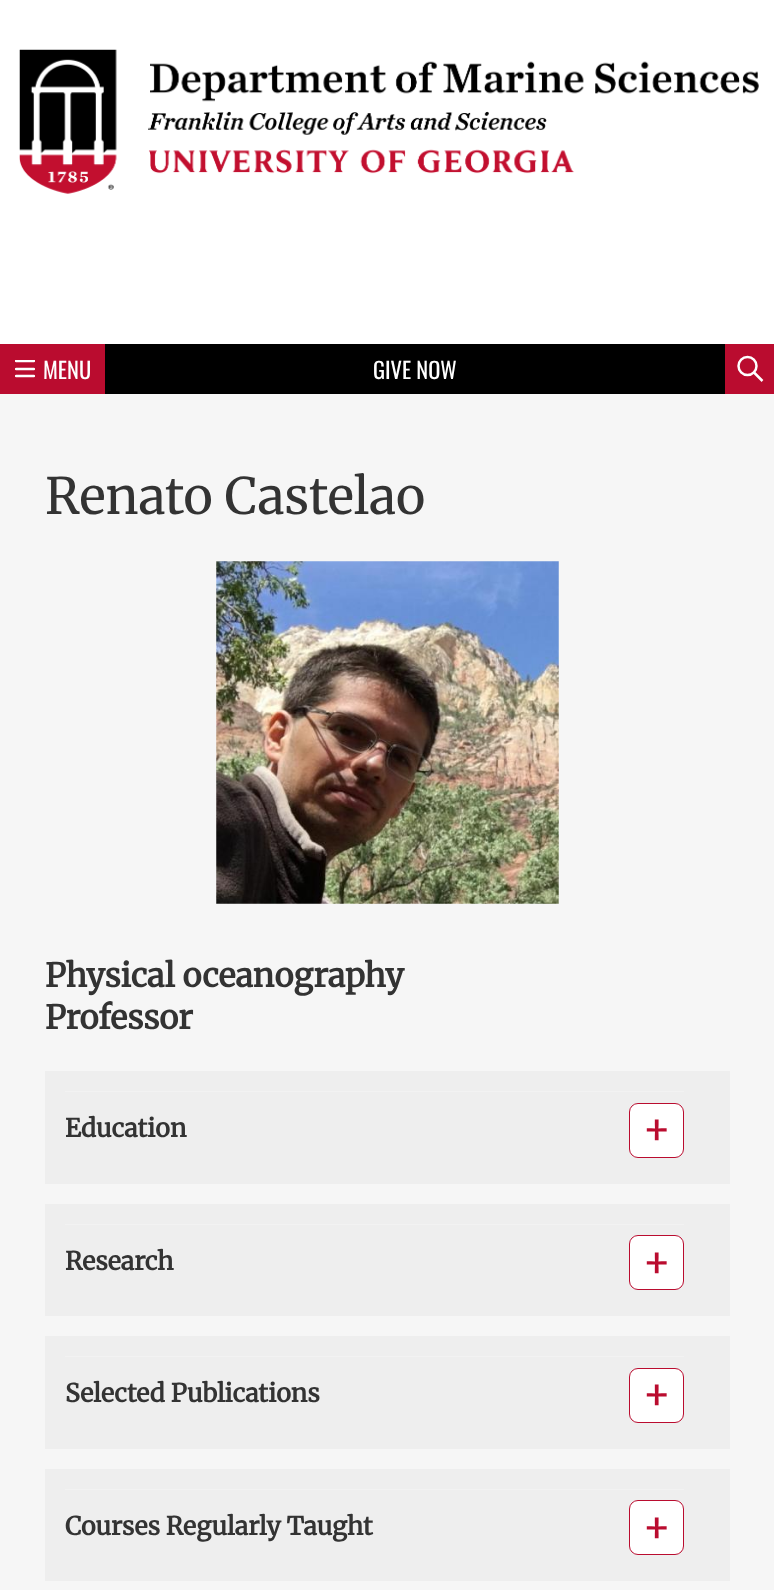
<svg xmlns="http://www.w3.org/2000/svg" width="774" height="1590">
<defs>
<clipPath id="clip1"><rect x="15" y="360" width="20" height="18"/></clipPath>
</defs>
<rect width="100%" height="100%" fill="#fff"/>
<image x="19" y="49" width="740" height="145" href="media/1.png"/>
<rect x="105" y="344" width="620" height="50" fill="#000"/>
<rect y="344" width="105" height="50" fill="#ba0c2f"/>
<g clip-path="url(#clip1)">
<path d="M16 361h18m-18 8h18m-18 7h18" fill="none" stroke="#fff" stroke-width="2.5" stroke-linecap="round"/>
</g>
<text x="43" y="379" style="font-family:Oswald;font-size:22.5px;fill:#fff">MENU</text>
<text x="373" y="379" style="font-family:Oswald;font-size:22.5px;fill:#fff">GIVE NOW</text>
<rect x="725" y="344" width="49" height="50" fill="#ba0c2f"/>
<circle cx="747.5" cy="366" r="9" fill="none" stroke="#fff" stroke-width="2.5"/>
<path d="M754 372.5l8.5 8.5" fill="none" stroke="#fff" stroke-width="2.5"/>
<rect y="394" width="774" height="1196" fill="#f6f6f6"/>
<text x="45" y="514" style="font-family:Merriweather;font-size:50px;font-weight:300;fill:#333">Renato Castelao</text>
<image x="216" y="561" width="343" height="343" href="media/2.png"/>
<text x="45" y="987" style="font-family:Merriweather;font-size:32.5px;font-weight:bold;fill:#333">Physical oceanography</text>
<text x="45" y="1029" style="font-family:Merriweather;font-size:32.5px;font-weight:bold;fill:#333">Professor</text>
<rect x="45" y="1071" width="685" height="113" fill="#eee"/>
<rect x="65" y="1091" width="619" height="1" fill="#f2f2f2"/>
<text x="65" y="1137" style="font-family:Merriweather;font-size:25px;font-weight:bold;fill:#333">Education</text>
<rect x="629.5" y="1103.5" width="54" height="54" rx="8.5" fill="#fff" stroke="#ba0c2f"/>
<text x="642" y="1144" style="font-family:Merriweather;font-size:44px;font-weight:300;fill:#ba0c2f">+</text>
<rect x="45" y="1204" width="685" height="112" fill="#eee"/>
<rect x="65" y="1224" width="619" height="1" fill="#f2f2f2"/>
<text x="65" y="1270" style="font-family:Merriweather;font-size:25px;font-weight:bold;fill:#333">Research</text>
<rect x="629.5" y="1235.5" width="54" height="54" rx="8.5" fill="#fff" stroke="#ba0c2f"/>
<text x="642" y="1277" style="font-family:Merriweather;font-size:44px;font-weight:300;fill:#ba0c2f">+</text>
<rect x="45" y="1336" width="685" height="113" fill="#eee"/>
<rect x="65" y="1356" width="619" height="1" fill="#f2f2f2"/>
<text x="65" y="1402" style="font-family:Merriweather;font-size:25px;font-weight:bold;fill:#333">Selected Publications</text>
<rect x="629.5" y="1368.5" width="54" height="54" rx="8.5" fill="#fff" stroke="#ba0c2f"/>
<text x="642" y="1409" style="font-family:Merriweather;font-size:44px;font-weight:300;fill:#ba0c2f">+</text>
<rect x="45" y="1469" width="685" height="112" fill="#eee"/>
<rect x="65" y="1489" width="619" height="1" fill="#f2f2f2"/>
<text x="65" y="1535" style="font-family:Merriweather;font-size:25px;font-weight:bold;fill:#333">Courses Regularly Taught</text>
<rect x="629.5" y="1500.5" width="54" height="54" rx="8.5" fill="#fff" stroke="#ba0c2f"/>
<text x="642" y="1542" style="font-family:Merriweather;font-size:44px;font-weight:300;fill:#ba0c2f">+</text>
</svg>
